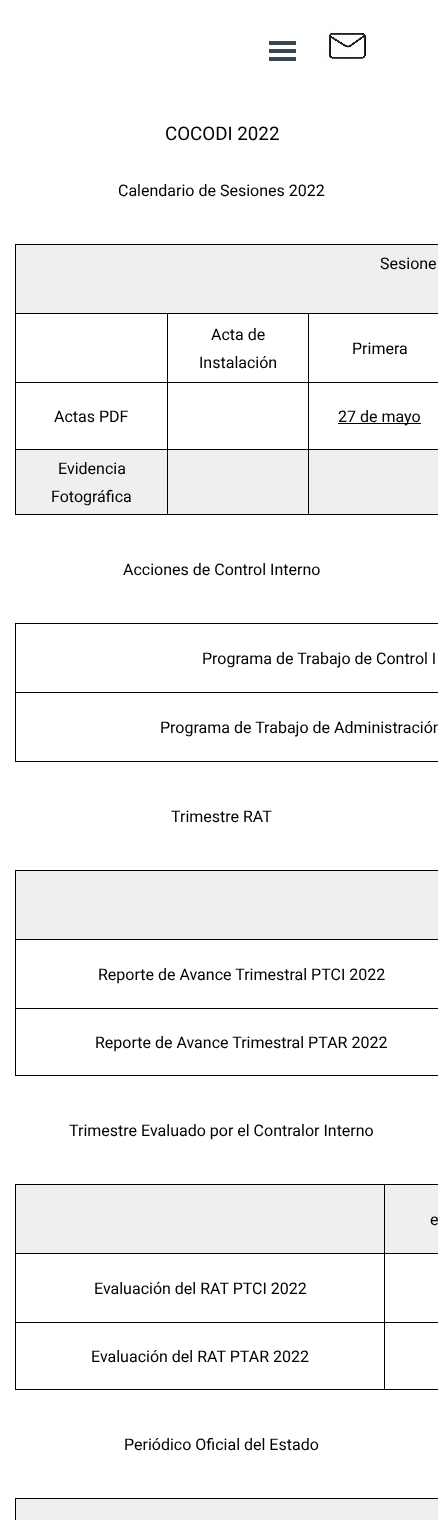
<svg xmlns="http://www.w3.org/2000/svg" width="443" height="1520">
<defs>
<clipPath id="clip1"><rect x="5" y="613" width="433" height="159"/></clipPath>
</defs>
<rect width="100%" height="100%" fill="#fff"/>
<rect x="269" y="41" width="27" height="4" fill="#36474f"/>
<rect x="269" y="49" width="27" height="4" fill="#36474f"/>
<rect x="269" y="57" width="27" height="4" fill="#36474f"/>
<image x="322" y="28" width="48" height="32" href="media/1.png"/>
<text x="165" y="140" style="font-family:Roboto;font-size:18.75px;fill:#000">COCODI 2022</text>
<text x="118" y="196" style="font-family:Roboto;font-size:16px;fill:#000">Calendario de Sesiones 2022</text>
<rect x="16" y="245" width="422" height="68" fill="#efefef"/>
<rect x="15" y="244" width="423" height="1" fill="#000"/>
<rect x="308" y="313" width="130" height="1" fill="#000"/>
<rect x="308" y="382" width="130" height="1" fill="#000"/>
<rect x="308" y="449" width="130" height="1" fill="#000"/>
<rect x="308" y="514" width="130" height="1" fill="#000"/>
<rect x="308" y="449" width="1" height="66" fill="#000"/>
<rect x="167" y="449" width="142" height="1" fill="#000"/>
<rect x="308" y="382" width="1" height="68" fill="#000"/>
<rect x="167" y="382" width="142" height="1" fill="#000"/>
<rect x="308" y="313" width="1" height="70" fill="#000"/>
<rect x="167" y="313" width="142" height="1" fill="#000"/>
<rect x="167" y="514" width="142" height="1" fill="#000"/>
<rect x="167" y="449" width="1" height="66" fill="#000"/>
<rect x="15" y="449" width="153" height="1" fill="#000"/>
<rect x="167" y="382" width="1" height="68" fill="#000"/>
<rect x="15" y="382" width="153" height="1" fill="#000"/>
<rect x="167" y="313" width="1" height="70" fill="#000"/>
<rect x="15" y="313" width="153" height="1" fill="#000"/>
<rect x="15" y="514" width="153" height="1" fill="#000"/>
<rect x="15" y="449" width="1" height="66" fill="#000"/>
<rect x="15" y="382" width="1" height="68" fill="#000"/>
<rect x="15" y="313" width="1" height="70" fill="#000"/>
<rect x="15" y="244" width="1" height="70" fill="#000"/>
<text x="380" y="269" style="font-family:Roboto;font-size:16px;fill:#000">Sesione</text>
<text x="211" y="340" style="font-family:Roboto;font-size:16px;fill:#000">Acta de</text>
<text x="199" y="368" style="font-family:Roboto;font-size:16px;fill:#000">Instalación</text>
<text x="352" y="354" style="font-family:Roboto;font-size:16px;fill:#000">Primera</text>
<text x="54" y="422" style="font-family:Roboto;font-size:16px;fill:#000">Actas PDF</text>
<rect x="338" y="423" width="83" height="1" fill="#000"/>
<text x="338" y="422" style="font-family:Roboto;font-size:16px;fill:#000">27 de mayo</text>
<rect x="16" y="450" width="151" height="64" fill="#efefef"/>
<text x="58" y="474" style="font-family:Roboto;font-size:16px;fill:#000">Evidencia</text>
<text x="51" y="502" style="font-family:Roboto;font-size:16px;fill:#000">Fotográfica</text>
<rect x="168" y="450" width="140" height="64" fill="#efefef"/>
<rect x="309" y="450" width="129" height="64" fill="#efefef"/>
<text x="123" y="575" style="font-family:Roboto;font-size:16px;fill:#000">Acciones de Control Interno</text>
<rect x="15" y="623" width="423" height="1" fill="#000"/>
<rect x="15" y="692" width="423" height="1" fill="#000"/>
<rect x="15" y="761" width="423" height="1" fill="#000"/>
<rect x="15" y="692" width="1" height="70" fill="#000"/>
<rect x="15" y="623" width="1" height="70" fill="#000"/>
<text x="202" y="664" style="font-family:Roboto;font-size:16px;fill:#000">Programa de Trabajo de Control I</text>
<g clip-path="url(#clip1)">
<text x="160" y="733" style="font-family:Roboto;font-size:16px;fill:#000">Programa de Trabajo de Administración</text>
</g>
<text x="171" y="822" style="font-family:Roboto;font-size:16px;fill:#000">Trimestre RAT</text>
<rect x="16" y="871" width="422" height="68" fill="#efefef"/>
<rect x="15" y="870" width="423" height="1" fill="#000"/>
<rect x="15" y="939" width="423" height="1" fill="#000"/>
<rect x="15" y="1008" width="423" height="1" fill="#000"/>
<rect x="15" y="1075" width="423" height="1" fill="#000"/>
<rect x="15" y="1008" width="1" height="68" fill="#000"/>
<rect x="15" y="939" width="1" height="70" fill="#000"/>
<rect x="15" y="870" width="1" height="70" fill="#000"/>
<text x="98" y="980" style="font-family:Roboto;font-size:16px;fill:#000">Reporte de Avance Trimestral PTCI 2022</text>
<text x="95" y="1048" style="font-family:Roboto;font-size:16px;fill:#000">Reporte de Avance Trimestral PTAR 2022</text>
<text x="69" y="1136" style="font-family:Roboto;font-size:16px;fill:#000">Trimestre Evaluado por el Contralor Interno</text>
<rect x="16" y="1185" width="368" height="68" fill="#efefef"/>
<rect x="384" y="1184" width="54" height="1" fill="#000"/>
<rect x="384" y="1253" width="54" height="1" fill="#000"/>
<rect x="384" y="1322" width="54" height="1" fill="#000"/>
<rect x="384" y="1389" width="54" height="1" fill="#000"/>
<rect x="384" y="1322" width="1" height="68" fill="#000"/>
<rect x="15" y="1322" width="370" height="1" fill="#000"/>
<rect x="384" y="1253" width="1" height="70" fill="#000"/>
<rect x="15" y="1253" width="370" height="1" fill="#000"/>
<rect x="384" y="1184" width="1" height="70" fill="#000"/>
<rect x="15" y="1184" width="370" height="1" fill="#000"/>
<rect x="15" y="1389" width="370" height="1" fill="#000"/>
<rect x="15" y="1322" width="1" height="68" fill="#000"/>
<rect x="15" y="1253" width="1" height="70" fill="#000"/>
<rect x="15" y="1184" width="1" height="70" fill="#000"/>
<rect x="385" y="1185" width="53" height="68" fill="#efefef"/>
<text x="430" y="1225" style="font-family:Roboto;font-size:16px;fill:#000">e</text>
<text x="94" y="1294" style="font-family:Roboto;font-size:16px;fill:#000">Evaluación del RAT PTCI 2022</text>
<text x="91" y="1362" style="font-family:Roboto;font-size:16px;fill:#000">Evaluación del RAT PTAR 2022</text>
<text x="124" y="1450" style="font-family:Roboto;font-size:16px;fill:#000">Periódico Oficial del Estado</text>
<rect x="16" y="1499" width="422" height="21" fill="#efefef"/>
<rect x="15" y="1498" width="423" height="1" fill="#000"/>
<rect x="15" y="1498" width="1" height="22" fill="#000"/>
</svg>
